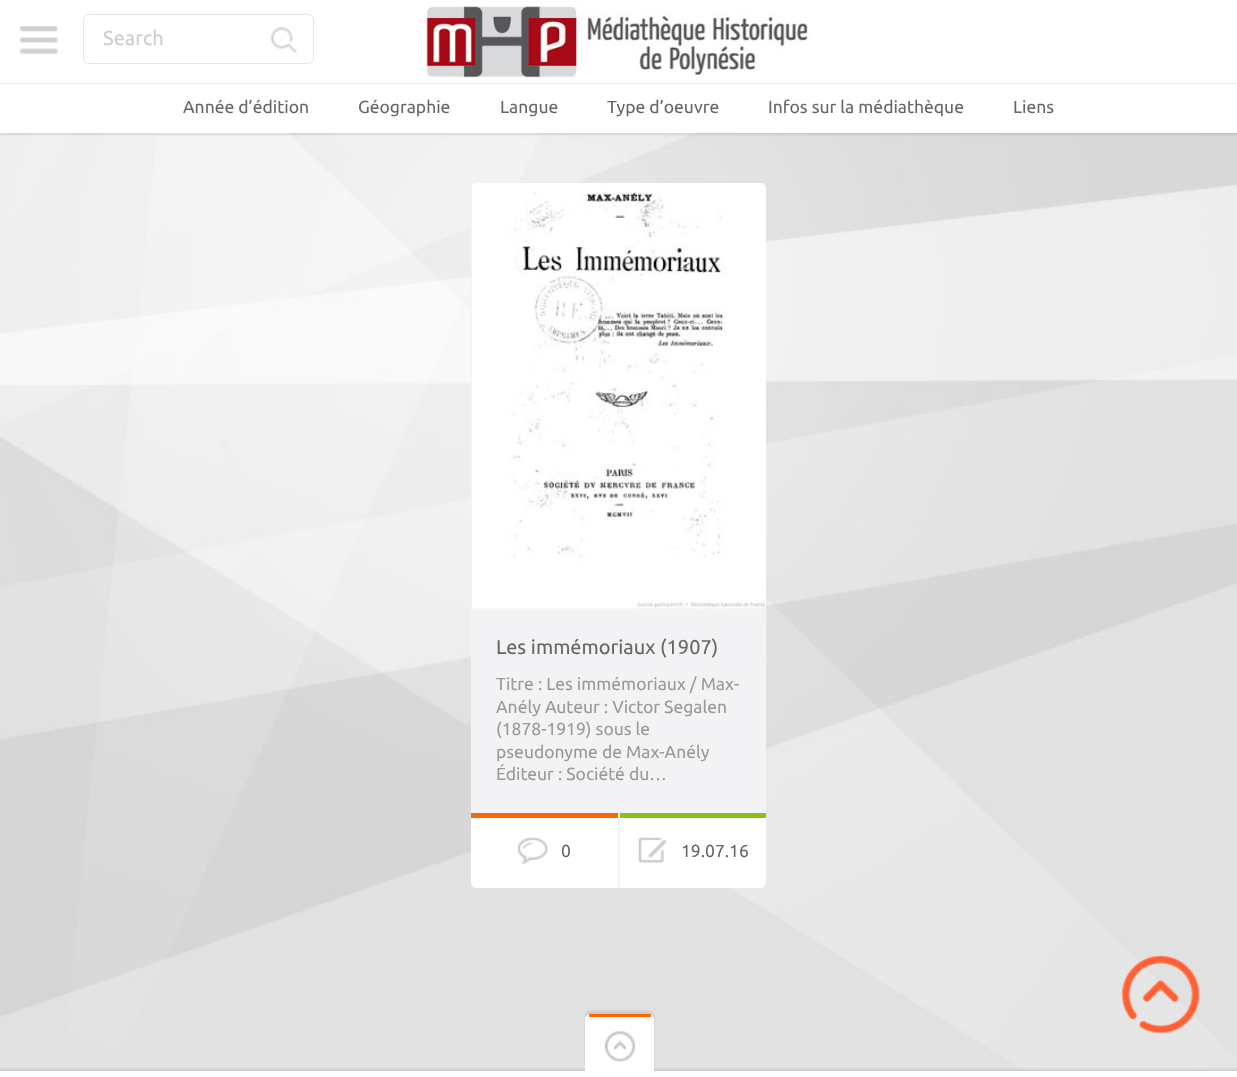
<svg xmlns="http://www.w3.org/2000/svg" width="1237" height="1077">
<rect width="100%" height="100%" fill="#fff"/>
<image x="0" y="133" width="1237" height="938" href="media/1.png"/>
<rect y="3" width="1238" height="132" fill="#0000001a" filter="blur(1px)"/>
<rect y="2" width="1237" height="131" fill="#fff"/>
<image x="19" y="26" width="39" height="29" href="media/2.png"/>
<rect x="83.5" y="14.5" width="230" height="49" rx="5.5" fill="none" stroke="#e5e5e5"/>
<text x="103" y="45" style="font-family:Ubuntu;font-size:20px;fill:#ccc">Search</text>
<image x="270" y="27" width="27" height="26" href="media/3.png"/>
<image x="426" y="6" width="384" height="72" href="media/4.png"/>
<rect y="83" width="1237" height="1" fill="#e5e7ea"/>
<text x="183" y="113" style="font-family:Ubuntu;font-size:17.5px;fill:#666">Année d’édition</text>
<text x="358" y="113" style="font-family:Ubuntu;font-size:17.5px;fill:#666">Géographie</text>
<text x="500" y="113" style="font-family:Ubuntu;font-size:17.5px;fill:#666">Langue</text>
<text x="607" y="113" style="font-family:Ubuntu;font-size:17.5px;fill:#666">Type d’oeuvre</text>
<text x="768" y="113" style="font-family:Ubuntu;font-size:17.5px;fill:#666">Infos sur la médiathèque</text>
<text x="1013" y="113" style="font-family:Ubuntu;font-size:17.5px;fill:#666">Liens</text>
<rect x="471" y="183" width="295" height="705" rx="6" fill="#f3f3f5"/>
<image x="472" y="183" width="294" height="426" href="media/5.png"/>
<text x="496" y="654" style="font-family:Ubuntu;font-size:20px;fill:#666">Les immémoriaux (1907)</text>
<text x="496" y="690" style="font-family:Ubuntu;font-size:17.5px;fill:#999">Titre : Les immémoriaux / Max-</text>
<text x="496" y="713" style="font-family:Ubuntu;font-size:17.5px;fill:#999">Anély Auteur : Victor Segalen</text>
<text x="496" y="735" style="font-family:Ubuntu;font-size:17.5px;fill:#999">(1878-1919) sous le</text>
<text x="496" y="758" style="font-family:Ubuntu;font-size:17.5px;fill:#999">pseudonyme de Max-Anély</text>
<text x="496" y="780" style="font-family:Ubuntu;font-size:17.5px;fill:#999">Éditeur : Société du…</text>
<path d="M471 813h147v75h-141c-3.5 0-6-2.5-6-6z" fill="#fff"/>
<rect x="471" y="813" width="147" height="5" fill="#ff6700"/>
<image x="517" y="837" width="31" height="27" href="media/6.png"/>
<text x="561" y="857" style="font-family:Ubuntu;font-size:17.5px;fill:#666">0</text>
<path d="M620 813h146v69c0 3.5-2.5 6-6 6h-140z" fill="#fff"/>
<rect x="620" y="813" width="146" height="5" fill="#8fbe1b"/>
<image x="638" y="837" width="29" height="26" href="media/7.png"/>
<text x="681" y="857" style="font-family:Ubuntu;font-size:17.5px;fill:#666">19.07.16</text>
<rect y="1069" width="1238" height="6" fill="#0000001a" filter="blur(1px)"/>
<image x="1121" y="955" width="80" height="79" href="media/8.png"/>
<rect y="1071" width="1237" height="5" fill="#fff"/>
<rect x="585" y="1011" width="69" height="58" rx="6" fill="#0000001a" filter="blur(1px)"/>
<path d="M591 1014h57c3.5 0 6 2.5 6 6v51h-69v-51c0-3.5 2.5-6 6-6z" fill="#fff"/>
<image x="605" y="1030" width="30" height="32" href="media/9.png"/>
<rect x="589" y="1014" width="62" height="3" fill="#ff6700"/>
</svg>
